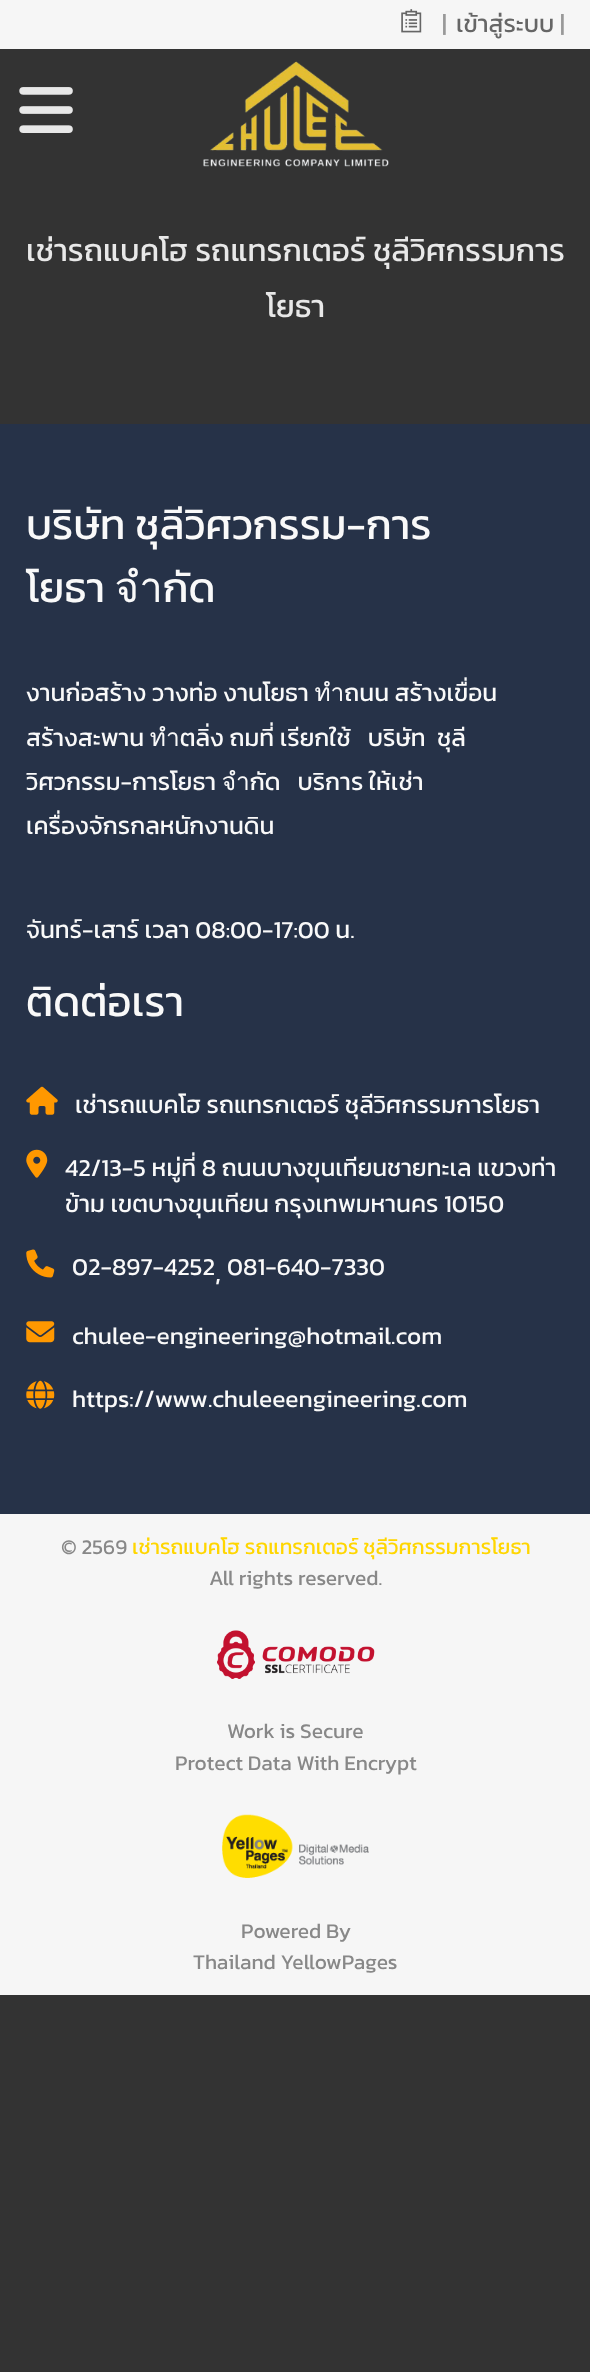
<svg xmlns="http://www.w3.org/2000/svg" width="590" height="2372">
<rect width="100%" height="100%" fill="#333"/>
<rect width="590" height="49" fill="#f6f6f6"/>
<image x="401" y="9" width="21" height="24" href="media/1.png"/>
<text x="442" y="32" style="font-family:Kanit;font-size:24.5px;fill:#999">|</text>
<text x="456" y="32" style="font-family:Kanit;font-size:24.5px;fill:#666">เข้าสู่ระบบ</text>
<text x="560" y="32" style="font-family:Kanit;font-size:24.5px;fill:#999">|</text>
<image x="19" y="87" width="54" height="46" href="media/2.png"/>
<image x="203" y="61" width="186" height="106" href="media/3.png"/>
<text x="26" y="261" style="font-family:Kanit;font-size:31.5px;fill:#e8e8e8">เช่ารถแบคโฮ รถแทรกเตอร์ ชุลีวิศกรรมการ</text>
<text x="266" y="317" style="font-family:Kanit;font-size:31.5px;fill:#e8e8e8">โยธา</text>
<rect y="424" width="590" height="1090" fill="#263248"/>
<text x="26" y="539" style="font-family:Kanit;font-size:42px;fill:#f9f9f9">บริษัท ชุลีวิศวกรรม-การ</text>
<text x="26" y="602" style="font-family:Kanit;font-size:42px;fill:#f9f9f9">โยธา จำกัด</text>
<text x="26" y="701" style="font-family:Kanit;font-size:24.5px;fill:#f9f9f9">งานก่อสร้าง วางท่อ งานโยธา ทำถนน สร้างเขื่อน</text>
<text x="26" y="746" style="font-family:Kanit;font-size:24.5px;fill:#f9f9f9" xml:space="preserve">สร้างสะพาน ทำตลิ่ง ถมที่ เรียกใช้   บริษัท  ชุลี</text>
<text x="26" y="790" style="font-family:Kanit;font-size:24.5px;fill:#f9f9f9" xml:space="preserve">วิศวกรรม-การโยธา จำกัด   บริการ ให้เช่า</text>
<text x="26" y="834" style="font-family:Kanit;font-size:24.5px;fill:#f9f9f9">เครื่องจักรกลหนักงานดิน</text>
<text x="26" y="938" style="font-family:Kanit;font-size:24.5px;fill:#f9f9f9">จันทร์-เสาร์ เวลา 08:00-17:00 น.</text>
<text x="26" y="1016" style="font-family:Kanit;font-size:42px;fill:#f9f9f9">ติดต่อเรา</text>
<image x="26" y="1086" width="32" height="29" href="media/4.png"/>
<text x="75" y="1113" style="font-family:Kanit;font-size:24.5px;fill:#f9f9f9">เช่ารถแบคโฮ รถแทรกเตอร์ ชุลีวิศกรรมการโยธา</text>
<image x="26" y="1149" width="22" height="29" href="media/5.png"/>
<text x="65" y="1176" style="font-family:Kanit;font-size:24.5px;fill:#f9f9f9">42/13-5 หมู่ที่ 8 ถนนบางขุนเทียนชายทะเล แขวงท่า</text>
<text x="65" y="1212" style="font-family:Kanit;font-size:24.5px;fill:#f9f9f9">ข้าม เขตบางขุนเทียน กรุงเทพมหานคร 10150</text>
<image x="26" y="1249" width="29" height="29" href="media/6.png"/>
<text x="72" y="1275" style="font-family:Kanit;font-size:24.5px;fill:#f9f9f9">02-897-4252</text>
<text x="227" y="1275" style="font-family:Kanit;font-size:24.5px;fill:#f9f9f9">081-640-7330</text>
<text x="215" y="1281" style="font-family:Kanit;font-size:28px;fill:#f9f9f9">,</text>
<image x="26" y="1321" width="29" height="22" href="media/7.png"/>
<text x="72" y="1344" style="font-family:Kanit;font-size:24.5px;fill:#f9f9f9">chulee-engineering@hotmail.com</text>
<image x="26" y="1380" width="29" height="29" href="media/8.png"/>
<text x="72" y="1407" style="font-family:Kanit;font-size:24.5px;fill:#f9f9f9">https://www.chuleeengineering.com</text>
<rect y="1514" width="590" height="481" fill="#f6f6f6"/>
<text x="61" y="1554" style="font-family:Kanit;font-size:21px;fill:#888">© 2569</text>
<text x="132" y="1554" style="font-family:Kanit;font-size:21px;fill:#ffd600">เช่ารถแบคโฮ รถแทรกเตอร์ ชุลีวิศกรรมการโยธา</text>
<text x="209" y="1585" style="font-family:Kanit;font-size:21px;fill:#888">All rights reserved.</text>
<image x="217" y="1630" width="158" height="49" href="media/9.png"/>
<text x="227" y="1738" style="font-family:Kanit;font-size:21px;fill:#888">Work is Secure</text>
<text x="175" y="1770" style="font-family:Kanit;font-size:21px;fill:#888">Protect Data With Encrypt</text>
<image x="222" y="1814" width="147" height="64" href="media/10.png"/>
<text x="241" y="1938" style="font-family:Kanit;font-size:21px;fill:#888">Powered By</text>
<text x="193" y="1969" style="font-family:Kanit;font-size:21px;fill:#888">Thailand YellowPages</text>
</svg>
